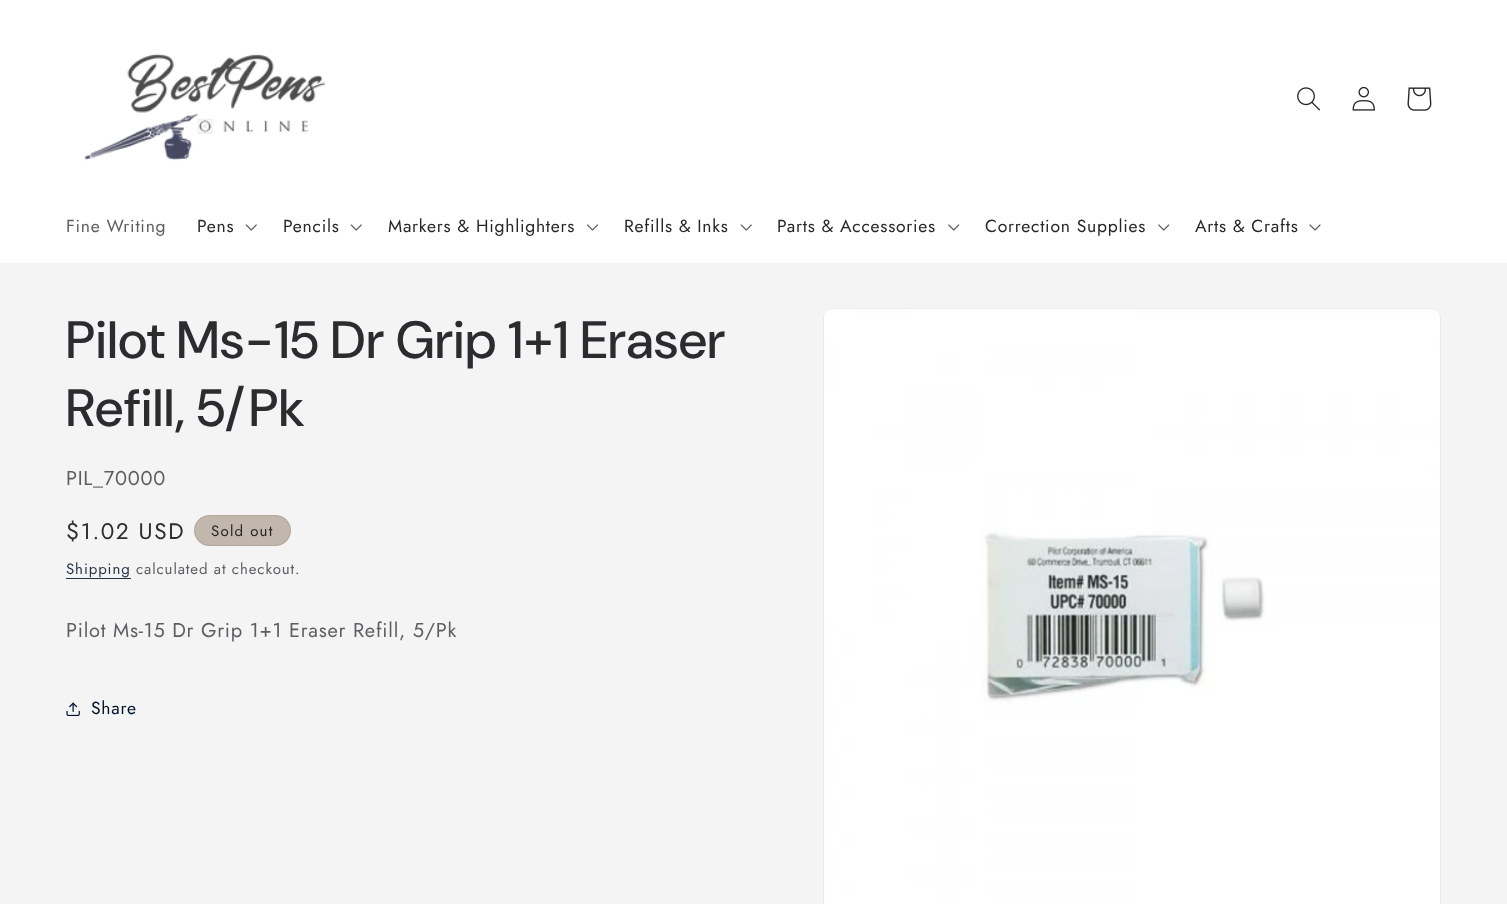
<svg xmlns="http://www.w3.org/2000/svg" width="1507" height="904">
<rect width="100%" height="100%" fill="#f4f4f4"/>
<rect width="1507" height="263" fill="#fff"/>
<image x="84" y="53" width="242" height="108" href="media/1.png"/>
<image x="1297" y="87" width="23" height="24" href="media/2.png"/>
<image x="1352" y="86" width="23" height="25" href="media/3.png"/>
<image x="1407" y="87" width="25" height="24" href="media/4.png"/>
<text x="66" y="232" style="font-family:Jost;font-size:17.5px;letter-spacing:0.75px;fill:#5d5e5f">Fine Writing</text>
<text x="197" y="232" style="font-family:Jost;font-size:17.5px;letter-spacing:0.75px;fill:#262626">Pens</text>
<image x="245" y="224" width="12" height="7" href="media/5.png"/>
<text x="283" y="232" style="font-family:Jost;font-size:17.5px;letter-spacing:0.75px;fill:#262626">Pencils</text>
<image x="350" y="224" width="12" height="7" href="media/5.png"/>
<text x="388" y="232" style="font-family:Jost;font-size:17.5px;letter-spacing:0.75px;fill:#262626">Markers &amp; Highlighters</text>
<image x="587" y="224" width="11" height="7" href="media/6.png"/>
<text x="624" y="232" style="font-family:Jost;font-size:17.5px;letter-spacing:0.75px;fill:#262626">Refills &amp; Inks</text>
<image x="740" y="224" width="12" height="7" href="media/5.png"/>
<text x="777" y="232" style="font-family:Jost;font-size:17.5px;letter-spacing:0.75px;fill:#262626">Parts &amp; Accessories</text>
<image x="948" y="224" width="12" height="7" href="media/7.png"/>
<text x="985" y="232" style="font-family:Jost;font-size:17.5px;letter-spacing:0.75px;fill:#262626">Correction Supplies</text>
<image x="1158" y="224" width="12" height="7" href="media/7.png"/>
<text x="1195" y="232" style="font-family:Jost;font-size:17.5px;letter-spacing:0.75px;fill:#262626">Arts &amp; Crafts</text>
<image x="1309" y="224" width="12" height="7" href="media/8.png"/>
<text x="66" y="358" style="font-family:DM Sans;font-size:52.5px;font-weight:500;letter-spacing:0.8px;fill:#2b2c2d">Pilot Ms-15 Dr Grip 1+1 Eraser</text>
<text x="66" y="426" style="font-family:DM Sans;font-size:52.5px;font-weight:500;letter-spacing:0.8px;fill:#2b2c2d">Refill, 5/Pk</text>
<text x="66" y="485" style="font-family:Jost;font-size:20px;letter-spacing:0.75px;fill:#5d5e5f">PIL_70000</text>
<text x="66" y="539" style="font-family:Jost;font-size:22.5px;letter-spacing:1.6px;fill:#2b2c2d">$1.02 USD</text>
<rect x="194" y="515" width="97" height="31" rx="15.5" fill="#c2b7ac"/>
<rect x="194.5" y="515.5" width="96" height="30" rx="15" fill="none" stroke="#2626261a"/>
<text x="211" y="536" style="font-family:Jost;font-size:15px;letter-spacing:1.25px;fill:#262626">Sold out</text>
<text x="66" y="574" style="font-family:Jost;font-size:15px;letter-spacing:0.9px;fill:#253347">Shipping</text>
<rect x="66" y="578" width="65" height="1" fill="#253347"/>
<text x="136" y="574" style="font-family:Jost;font-size:15px;letter-spacing:0.9px;fill:#5d5e5f">calculated at checkout.</text>
<text x="66" y="637" style="font-family:Jost;font-size:20px;letter-spacing:0.75px;fill:#5d5e5f">Pilot Ms-15 Dr Grip 1+1 Eraser Refill, 5/Pk</text>
<image x="66" y="702" width="14" height="14" href="media/9.png"/>
<text x="91" y="714" style="font-family:Jost;font-size:17.5px;letter-spacing:0.75px;fill:#001128">Share</text>
<rect x="823.5" y="308.5" width="617" height="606" rx="9.5" fill="none" stroke="#eaeaea"/>
<image x="824" y="309" width="616" height="595" href="media/10.png"/>
</svg>
